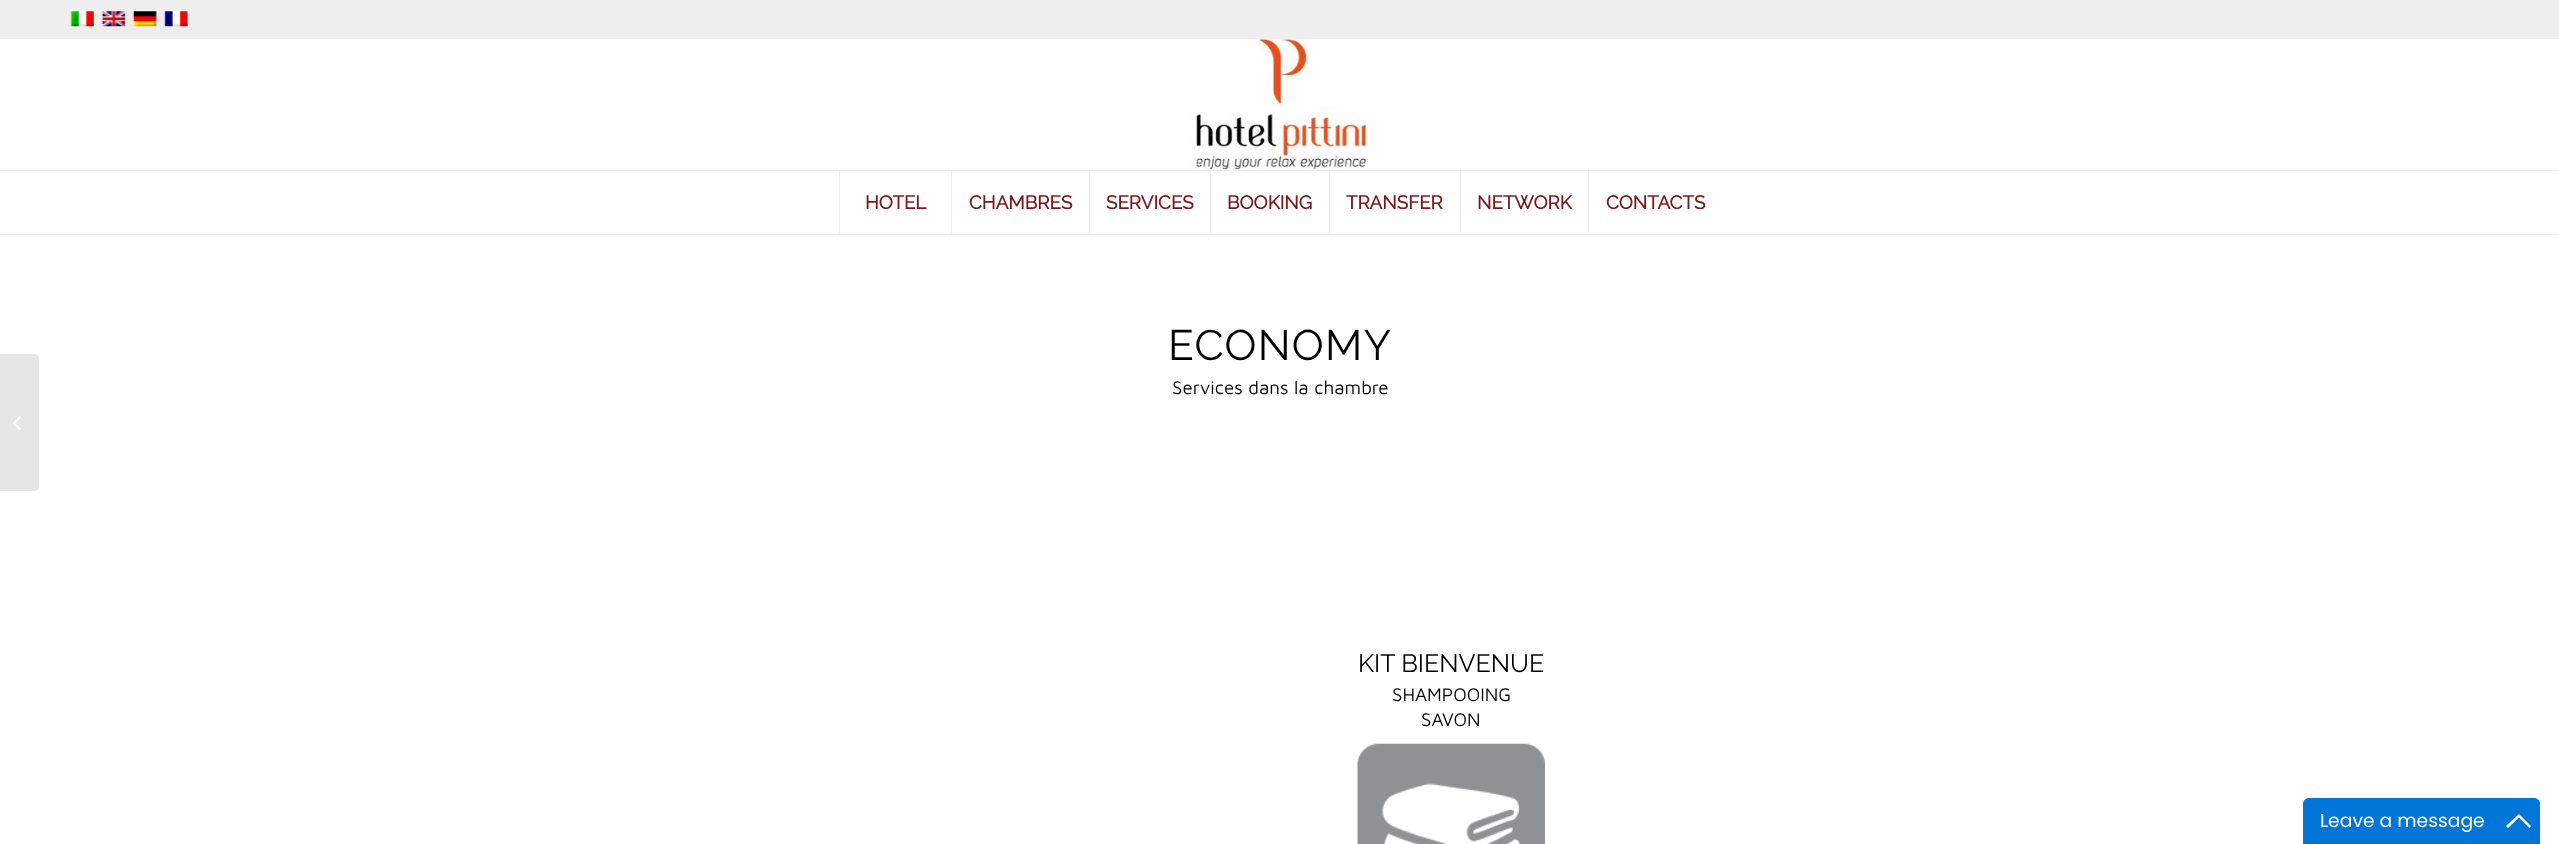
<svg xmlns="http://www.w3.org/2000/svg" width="2559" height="844">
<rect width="100%" height="100%" fill="#fff"/>
<rect width="2559" height="39" fill="#eee"/>
<rect x="70.5" y="10.5" width="24" height="17" fill="none" stroke="#f1f1f1"/>
<image x="70" y="11" width="24" height="16" href="media/1.png"/>
<rect x="101.5" y="10.5" width="24" height="17" fill="none" stroke="#f1f1f1"/>
<image x="101" y="11" width="25" height="16" href="media/2.png"/>
<rect x="133.5" y="10.5" width="24" height="17" fill="none" stroke="#f1f1f1"/>
<image x="133" y="11" width="24" height="16" href="media/3.png"/>
<rect x="164.5" y="10.5" width="24" height="17" fill="none" stroke="#f1f1f1"/>
<image x="164" y="11" width="24" height="16" href="media/4.png"/>
<rect y="234" width="2559" height="1" fill="#eee"/>
<image x="1137" y="39" width="286" height="131" href="media/5.png"/>
<rect y="170" width="2559" height="1" fill="#eee"/>
<rect x="839" y="171" width="1" height="63" fill="#eee"/>
<text x="865" y="209" style="font-family:Raleway;font-size:18.75px;font-weight:bold;fill:#7b181b">HOTEL</text>
<rect x="951" y="171" width="1" height="63" fill="#eee"/>
<text x="969" y="209" style="font-family:Raleway;font-size:18.75px;font-weight:bold;fill:#7b181b">CHAMBRES</text>
<rect x="1089" y="171" width="1" height="63" fill="#eee"/>
<text x="1106" y="209" style="font-family:Raleway;font-size:18.75px;font-weight:bold;fill:#7b181b">SERVICES</text>
<rect x="1210" y="171" width="1" height="63" fill="#eee"/>
<text x="1227" y="209" style="font-family:Raleway;font-size:18.75px;font-weight:bold;fill:#7b181b">BOOKING</text>
<rect x="1329" y="171" width="1" height="63" fill="#eee"/>
<text x="1346" y="209" style="font-family:Raleway;font-size:18.75px;font-weight:bold;fill:#7b181b">TRANSFER</text>
<rect x="1460" y="171" width="1" height="63" fill="#eee"/>
<text x="1477" y="209" style="font-family:Raleway;font-size:18.75px;font-weight:bold;fill:#7b181b">NETWORK</text>
<rect x="1588" y="171" width="1" height="63" fill="#eee"/>
<text x="1606" y="209" style="font-family:Raleway;font-size:18.75px;font-weight:bold;fill:#7b181b">CONTACTS</text>
<path d="M0 354h34c3 0 5 2 5 5v127c0 3-2 5-5 5h-34z" fill="#e6e6e6"/>
<image x="13" y="416" width="8" height="14" href="media/6.png"/>
<text x="1168" y="360" style="font-family:Raleway;font-size:42.5px;font-weight:100;letter-spacing:1.25px;fill:#000">ECONOMY</text>
<text x="1172" y="394" style="font-family:Maven Pro;font-size:18.75px;fill:#000">Services dans la chambre</text>
<text x="1358" y="672" style="font-family:Raleway;font-size:25px;font-weight:100;fill:#000">KIT BIENVENUE</text>
<text x="1392" y="701" style="font-family:Maven Pro;font-size:18.75px;fill:#000">SHAMPOOING</text>
<text x="1421" y="726" style="font-family:Maven Pro;font-size:18.75px;fill:#000">SAVON</text>
<image x="1357" y="743" width="188" height="101" href="media/7.png"/>
<path d="M2309 798h225c3.5 0 6 2.5 6 6v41h-237v-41c0-3.5 2.5-6 6-6z" fill="#0275d8"/>
<text x="2320" y="827" style="font-family:Poppins;font-size:18.75px;fill:#fff">Leave a message</text>
<path d="M2519 814l12 12l-1.5 2l-10.5-10.5l-11 10.5l-2-2z" fill="#fff"/>
</svg>
